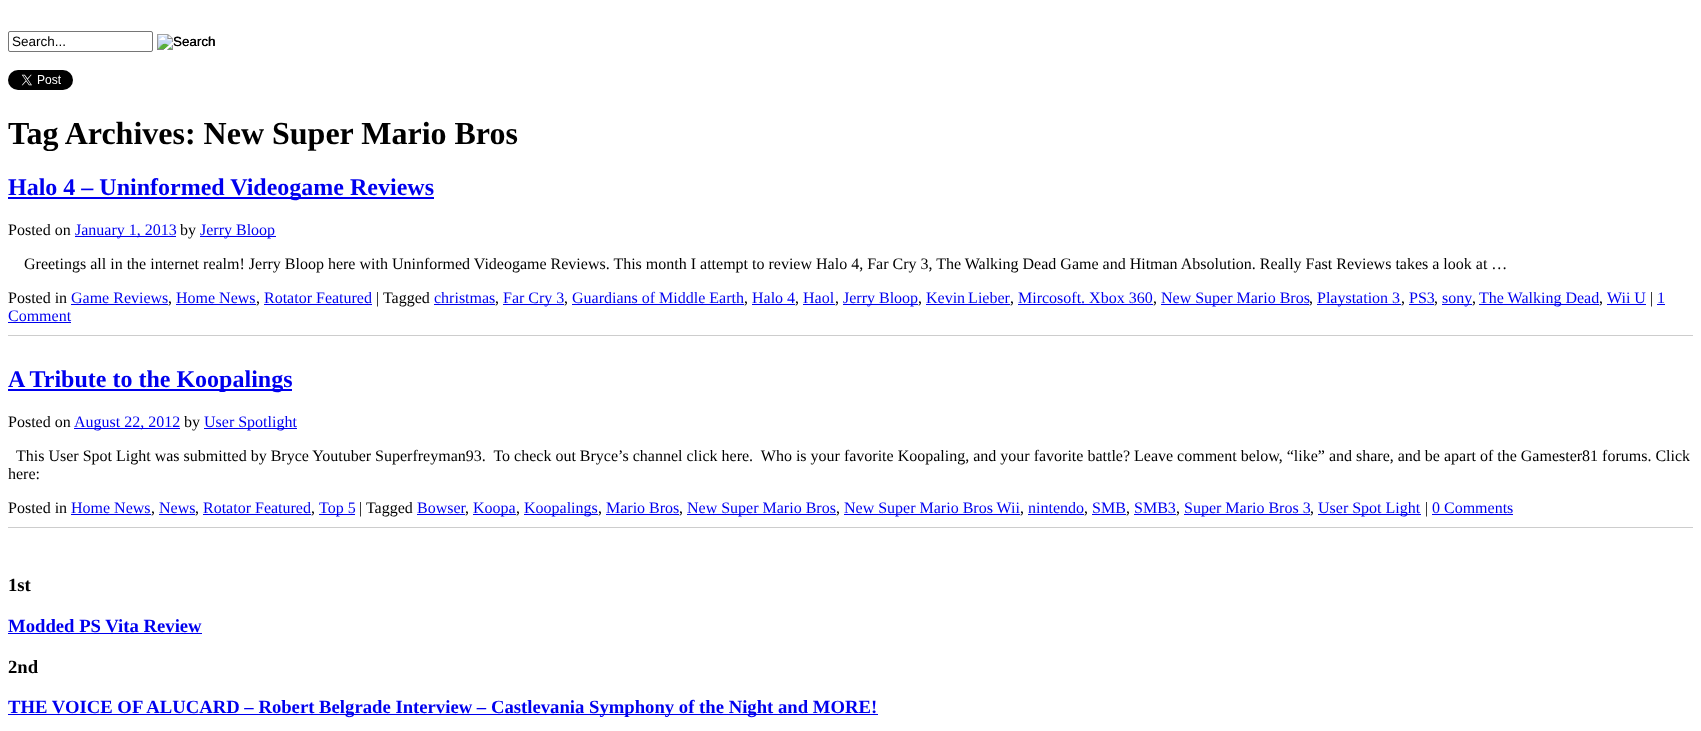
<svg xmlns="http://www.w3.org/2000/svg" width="1701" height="731">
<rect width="100%" height="100%" fill="#fff"/>
<rect x="8.5" y="31.5" width="144" height="20" rx="1.5" fill="none" stroke="#767676"/>
<text x="12" y="46" style="font-family:Liberation Sans;font-size:13.5px;fill:#000">Search...</text>
<image x="157" y="34" width="58" height="16" href="media/1.png"/>
<text x="173" y="46" style="font-family:Liberation Sans;font-size:13.5px;fill:#000">Search</text>
<image x="8" y="70" width="65" height="20" href="media/2.png"/>
<text x="8" y="144" style="font-family:Liberation Serif;font-size:32px;font-weight:bold;fill:#000">Tag Archives: New Super Mario Bros</text>
<rect x="8" y="197" width="426" height="2" fill="#00e"/>
<text x="8" y="195" style="font-family:Liberation Serif;font-size:24px;font-weight:bold;fill:#00e">Halo 4 – Uninformed Videogame Reviews</text>
<text x="8" y="235" style="font-family:Liberation Serif;font-size:16px;fill:#000">Posted on</text>
<rect x="75" y="236" width="101" height="1" fill="#00e"/>
<text x="75" y="235" style="font-family:Liberation Serif;font-size:16px;fill:#00e">January 1, 2013</text>
<text x="180" y="235" style="font-family:Liberation Serif;font-size:16px;fill:#000">by</text>
<rect x="200" y="236" width="76" height="1" fill="#00e"/>
<text x="200" y="235" style="font-family:Liberation Serif;font-size:16px;fill:#00e">Jerry Bloop</text>
<text x="24" y="269" style="font-family:Liberation Serif;font-size:16px;fill:#000">Greetings all in the internet realm! Jerry Bloop here with Uninformed Videogame Reviews. This month I attempt to review Halo 4, Far Cry 3, The Walking Dead Game and Hitman Absolution. Really Fast Reviews takes a look at …</text>
<text x="8" y="303" style="font-family:Liberation Serif;font-size:16px;fill:#000">Posted in</text>
<text x="71" y="303" style="font-family:Liberation Serif;font-size:16px;fill:#00e">Game Reviews</text>
<text x="168" y="303" style="font-family:Liberation Serif;font-size:16px;fill:#000">,</text>
<rect x="71" y="304" width="97" height="1" fill="#00e"/>
<text x="176" y="303" style="font-family:Liberation Serif;font-size:16px;fill:#00e">Home News</text>
<text x="256" y="303" style="font-family:Liberation Serif;font-size:16px;fill:#000">,</text>
<rect x="176" y="304" width="80" height="1" fill="#00e"/>
<rect x="264" y="304" width="108" height="1" fill="#00e"/>
<text x="264" y="303" style="font-family:Liberation Serif;font-size:16px;fill:#00e">Rotator Featured</text>
<text x="376" y="303" style="font-family:Liberation Serif;font-size:16px;fill:#000">| Tagged</text>
<text x="434" y="303" style="font-family:Liberation Serif;font-size:16px;fill:#00e">christmas</text>
<text x="495" y="303" style="font-family:Liberation Serif;font-size:16px;fill:#000">,</text>
<rect x="434" y="304" width="61" height="1" fill="#00e"/>
<rect x="503" y="304" width="61" height="1" fill="#00e"/>
<text x="503" y="303" style="font-family:Liberation Serif;font-size:16px;fill:#00e">Far Cry 3</text>
<text x="564" y="303" style="font-family:Liberation Serif;font-size:16px;fill:#000">,</text>
<text x="572" y="303" style="font-family:Liberation Serif;font-size:16px;fill:#00e">Guardians of Middle Earth</text>
<text x="744" y="303" style="font-family:Liberation Serif;font-size:16px;fill:#000">,</text>
<rect x="572" y="304" width="172" height="1" fill="#00e"/>
<text x="752" y="303" style="font-family:Liberation Serif;font-size:16px;fill:#00e">Halo 4</text>
<text x="795" y="303" style="font-family:Liberation Serif;font-size:16px;fill:#000">,</text>
<rect x="752" y="304" width="43" height="1" fill="#00e"/>
<text x="803" y="303" style="font-family:Liberation Serif;font-size:16px;fill:#00e">Haol</text>
<text x="835" y="303" style="font-family:Liberation Serif;font-size:16px;fill:#000">,</text>
<rect x="803" y="304" width="32" height="1" fill="#00e"/>
<rect x="843" y="304" width="75" height="1" fill="#00e"/>
<text x="843" y="303" style="font-family:Liberation Serif;font-size:16px;fill:#00e">Jerry Bloop</text>
<text x="918" y="303" style="font-family:Liberation Serif;font-size:16px;fill:#000">,</text>
<text x="926" y="303" word-spacing="-1" style="font-family:Liberation Serif;font-size:16px;fill:#00e">Kevin Lieber</text>
<text x="1010" y="303" style="font-family:Liberation Serif;font-size:16px;fill:#000">,</text>
<rect x="926" y="304" width="84" height="1" fill="#00e"/>
<text x="1018" y="303" style="font-family:Liberation Serif;font-size:16px;fill:#00e">Mircosoft. Xbox 360</text>
<text x="1153" y="303" style="font-family:Liberation Serif;font-size:16px;fill:#000">,</text>
<rect x="1018" y="304" width="135" height="1" fill="#00e"/>
<rect x="1161" y="304" width="148" height="1" fill="#00e"/>
<text x="1161" y="303" style="font-family:Liberation Serif;font-size:16px;fill:#00e">New Super Mario Bros</text>
<text x="1309" y="303" style="font-family:Liberation Serif;font-size:16px;fill:#000">,</text>
<rect x="1317" y="304" width="84" height="1" fill="#00e"/>
<text x="1317" y="303" style="font-family:Liberation Serif;font-size:16px;fill:#00e">Playstation 3</text>
<text x="1401" y="303" style="font-family:Liberation Serif;font-size:16px;fill:#000">,</text>
<text x="1409" y="303" style="font-family:Liberation Serif;font-size:16px;fill:#00e">PS3</text>
<text x="1434" y="303" style="font-family:Liberation Serif;font-size:16px;fill:#000">,</text>
<rect x="1409" y="304" width="25" height="1" fill="#00e"/>
<rect x="1442" y="304" width="30" height="1" fill="#00e"/>
<text x="1442" y="303" style="font-family:Liberation Serif;font-size:16px;fill:#00e">sony</text>
<text x="1472" y="303" style="font-family:Liberation Serif;font-size:16px;fill:#000">,</text>
<rect x="1479" y="304" width="120" height="1" fill="#00e"/>
<text x="1479" y="303" style="font-family:Liberation Serif;font-size:16px;fill:#00e">The Walking Dead</text>
<text x="1599" y="303" style="font-family:Liberation Serif;font-size:16px;fill:#000">,</text>
<rect x="1607" y="304" width="39" height="1" fill="#00e"/>
<text x="1607" y="303" style="font-family:Liberation Serif;font-size:16px;fill:#00e">Wii U</text>
<text x="1650" y="303" style="font-family:Liberation Serif;font-size:16px;fill:#000">|</text>
<text x="1657" y="303" style="font-family:Liberation Serif;font-size:16px;fill:#00e">1</text>
<rect x="1657" y="304" width="8" height="1" fill="#00e"/>
<text x="8" y="321" style="font-family:Liberation Serif;font-size:16px;fill:#00e">Comment</text>
<rect x="8" y="322" width="63" height="1" fill="#00e"/>
<rect x="8" y="335" width="1685" height="1" fill="#cdcdcd"/>
<rect x="8" y="389" width="284" height="2" fill="#00e"/>
<text x="8" y="387" style="font-family:Liberation Serif;font-size:24px;font-weight:bold;fill:#00e">A Tribute to the Koopalings</text>
<text x="8" y="427" style="font-family:Liberation Serif;font-size:16px;fill:#000">Posted on</text>
<rect x="74" y="428" width="106" height="1" fill="#00e"/>
<text x="74" y="427" style="font-family:Liberation Serif;font-size:16px;fill:#00e">August 22, 2012</text>
<text x="184" y="427" style="font-family:Liberation Serif;font-size:16px;fill:#000">by</text>
<rect x="204" y="428" width="93" height="1" fill="#00e"/>
<text x="204" y="427" style="font-family:Liberation Serif;font-size:16px;fill:#00e">User Spotlight</text>
<text x="16" y="461" style="font-family:Liberation Serif;font-size:16px;fill:#000" xml:space="preserve">This User Spot Light was submitted by Bryce Youtuber Superfreyman93.  To check out Bryce’s channel click here.  Who is your favorite Koopaling, and your favorite battle? Leave comment below, “like” and share, and be apart of the Gamester81 forums. Click</text>
<text x="8" y="479" style="font-family:Liberation Serif;font-size:16px;fill:#000">here:</text>
<text x="8" y="513" style="font-family:Liberation Serif;font-size:16px;fill:#000">Posted in</text>
<text x="71" y="513" style="font-family:Liberation Serif;font-size:16px;fill:#00e">Home News</text>
<text x="151" y="513" style="font-family:Liberation Serif;font-size:16px;fill:#000">,</text>
<rect x="71" y="514" width="80" height="1" fill="#00e"/>
<text x="159" y="513" style="font-family:Liberation Serif;font-size:16px;fill:#00e">News</text>
<text x="195" y="513" style="font-family:Liberation Serif;font-size:16px;fill:#000">,</text>
<rect x="159" y="514" width="36" height="1" fill="#00e"/>
<text x="203" y="513" style="font-family:Liberation Serif;font-size:16px;fill:#00e">Rotator Featured</text>
<text x="311" y="513" style="font-family:Liberation Serif;font-size:16px;fill:#000">,</text>
<rect x="203" y="514" width="108" height="1" fill="#00e"/>
<rect x="319" y="514" width="36" height="1" fill="#00e"/>
<text x="319" y="513" style="font-family:Liberation Serif;font-size:16px;fill:#00e">Top 5</text>
<text x="359" y="513" style="font-family:Liberation Serif;font-size:16px;fill:#000">| Tagged</text>
<text x="417" y="513" style="font-family:Liberation Serif;font-size:16px;fill:#00e">Bowser</text>
<text x="465" y="513" style="font-family:Liberation Serif;font-size:16px;fill:#000">,</text>
<rect x="417" y="514" width="48" height="1" fill="#00e"/>
<rect x="473" y="514" width="43" height="1" fill="#00e"/>
<text x="473" y="513" style="font-family:Liberation Serif;font-size:16px;fill:#00e">Koopa</text>
<text x="516" y="513" style="font-family:Liberation Serif;font-size:16px;fill:#000">,</text>
<rect x="524" y="514" width="74" height="1" fill="#00e"/>
<text x="524" y="513" style="font-family:Liberation Serif;font-size:16px;fill:#00e">Koopalings</text>
<text x="598" y="513" style="font-family:Liberation Serif;font-size:16px;fill:#000">,</text>
<text x="606" y="513" style="font-family:Liberation Serif;font-size:16px;fill:#00e">Mario Bros</text>
<text x="679" y="513" style="font-family:Liberation Serif;font-size:16px;fill:#000">,</text>
<rect x="606" y="514" width="73" height="1" fill="#00e"/>
<rect x="687" y="514" width="149" height="1" fill="#00e"/>
<text x="687" y="513" style="font-family:Liberation Serif;font-size:16px;fill:#00e">New Super Mario Bros</text>
<text x="836" y="513" style="font-family:Liberation Serif;font-size:16px;fill:#000">,</text>
<rect x="844" y="514" width="176" height="1" fill="#00e"/>
<text x="844" y="513" style="font-family:Liberation Serif;font-size:16px;fill:#00e">New Super Mario Bros Wii</text>
<text x="1020" y="513" style="font-family:Liberation Serif;font-size:16px;fill:#000">,</text>
<text x="1028" y="513" style="font-family:Liberation Serif;font-size:16px;fill:#00e">nintendo</text>
<text x="1084" y="513" style="font-family:Liberation Serif;font-size:16px;fill:#000">,</text>
<rect x="1028" y="514" width="56" height="1" fill="#00e"/>
<text x="1092" y="513" style="font-family:Liberation Serif;font-size:16px;fill:#00e">SMB</text>
<text x="1126" y="513" style="font-family:Liberation Serif;font-size:16px;fill:#000">,</text>
<rect x="1092" y="514" width="34" height="1" fill="#00e"/>
<text x="1134" y="513" style="font-family:Liberation Serif;font-size:16px;fill:#00e">SMB3</text>
<text x="1176" y="513" style="font-family:Liberation Serif;font-size:16px;fill:#000">,</text>
<rect x="1134" y="514" width="42" height="1" fill="#00e"/>
<rect x="1184" y="514" width="126" height="1" fill="#00e"/>
<text x="1184" y="513" style="font-family:Liberation Serif;font-size:16px;fill:#00e">Super Mario Bros 3</text>
<text x="1310" y="513" style="font-family:Liberation Serif;font-size:16px;fill:#000">,</text>
<rect x="1318" y="514" width="103" height="1" fill="#00e"/>
<text x="1318" y="513" style="font-family:Liberation Serif;font-size:16px;fill:#00e">User Spot Light</text>
<text x="1425" y="513" style="font-family:Liberation Serif;font-size:16px;fill:#000">|</text>
<text x="1432" y="513" style="font-family:Liberation Serif;font-size:16px;fill:#00e">0 Comments</text>
<rect x="1432" y="514" width="81" height="1" fill="#00e"/>
<rect x="8" y="527" width="1685" height="1" fill="#cdcdcd"/>
<text x="8" y="591" style="font-family:Liberation Serif;font-size:18.7px;font-weight:bold;fill:#000">1st</text>
<text x="8" y="632" style="font-family:Liberation Serif;font-size:18.7px;font-weight:bold;fill:#00e">Modded PS Vita Review</text>
<rect x="8" y="633" width="194" height="1" fill="#00e"/>
<text x="8" y="673" style="font-family:Liberation Serif;font-size:18.7px;font-weight:bold;fill:#000">2nd</text>
<rect x="8" y="714" width="870" height="1" fill="#00e"/>
<text x="8" y="713" style="font-family:Liberation Serif;font-size:18.7px;font-weight:bold;fill:#00e">THE VOICE OF ALUCARD – Robert Belgrade Interview – Castlevania Symphony of the Night and MORE!</text>
</svg>
